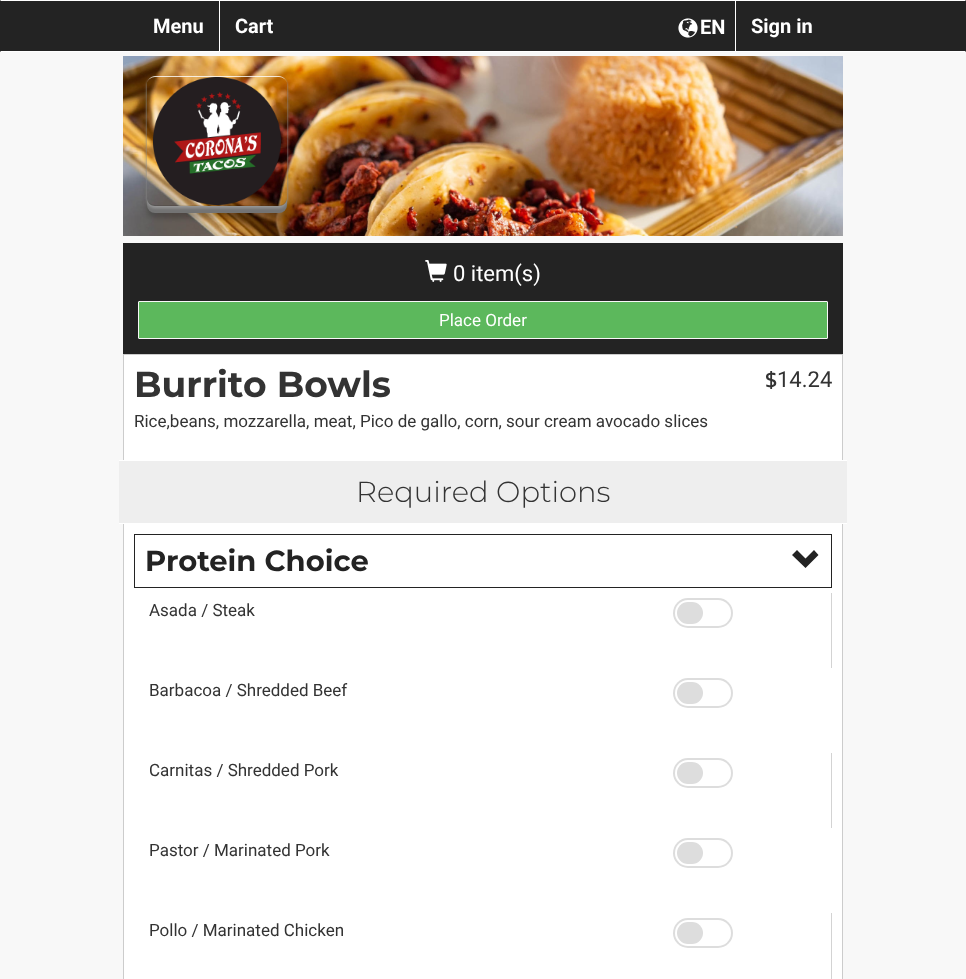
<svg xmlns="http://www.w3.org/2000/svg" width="966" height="979">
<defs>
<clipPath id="clip1"><path d="M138 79h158v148h-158zm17-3h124c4.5 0 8 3.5 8 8v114c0 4.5-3.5 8-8 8h-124c-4.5 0-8-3.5-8-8v-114c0-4.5 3.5-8 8-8z" clip-rule="evenodd"/></clipPath>
<clipPath id="clip2"><path d="M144 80h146v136h-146zm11-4h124c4.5 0 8 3.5 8 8v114c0 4.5-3.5 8-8 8h-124c-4.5 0-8-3.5-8-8v-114c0-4.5 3.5-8 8-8z" clip-rule="evenodd"/></clipPath>
<clipPath id="clip3"><path d="M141 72h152v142h-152zm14 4h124c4.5 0 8 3.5 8 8v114c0 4.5-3.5 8-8 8h-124c-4.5 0-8-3.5-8-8v-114c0-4.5 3.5-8 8-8z" clip-rule="evenodd"/></clipPath>
</defs>
<rect width="100%" height="100%" fill="#f8f8f8"/>
<rect width="966" height="52" fill="#232323"/>
<path d="M0 0h966l-1 1h-964z" fill="#fff"/>
<path d="M966 52h-966l1-1h964z" fill="#fff"/>
<rect x="219" y="1" width="1" height="50" fill="#fff"/>
<text x="153" y="33" style="font-family:Roboto;font-size:20px;font-weight:bold;fill:#fff">Menu</text>
<text x="235" y="33" style="font-family:Roboto;font-size:20px;font-weight:bold;fill:#fff">Cart</text>
<image x="678" y="18" width="20" height="20" href="media/1.png"/>
<text x="700" y="34" style="font-family:Roboto;font-size:20px;font-weight:bold;fill:#fff">EN</text>
<rect x="735" y="1" width="1" height="50" fill="#fff"/>
<text x="751" y="33" style="font-family:Roboto;font-size:20px;font-weight:bold;fill:#fff">Sign in</text>
<image x="123" y="56" width="720" height="180" href="media/2.png"/>
<g clip-path="url(#clip1)">
<rect x="147" y="88" width="140" height="130" rx="8" fill="#00000033" filter="blur(2.5px)"/>
</g>
<g clip-path="url(#clip2)">
<rect x="147" y="83" width="140" height="130" rx="8" fill="#737373" filter="blur(0.5px)"/>
</g>
<g clip-path="url(#clip3)">
<rect x="147" y="78" width="140" height="130" rx="8" fill="#999" filter="blur(1.5px)"/>
</g>
<image x="153" y="77" width="128" height="128" href="media/3.png"/>
<path d="M155 76c-4 0-8 4-8 8c0-4 4-7 8-7h124c4 0 8 3 8 7c0-4-4-8-8-8z" fill="#ffffffcc"/>
<path d="M279 206c4 0 8-4 8-8c0 4-4 7-8 7h-124c-4 0-8-3-8-7c0 4 4 8 8 8z" fill="#0000001a"/>
<rect x="123" y="243" width="720" height="111" fill="#232323"/>
<image x="425" y="260" width="22" height="22" href="media/4.png"/>
<text x="453" y="281" style="font-family:Roboto;font-size:22px;fill:#fff">0 item(s)</text>
<rect x="138.5" y="301.5" width="689" height="37" rx="0.5" fill="#5cb85c" stroke="#f8f8f8"/>
<text x="439" y="326" style="font-family:Roboto;font-size:17px;fill:#fff">Place Order</text>
<rect x="123.5" y="354.5" width="719" height="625" fill="#fff" stroke="#ccc"/>
<text x="134" y="397" style="font-family:Montserrat;font-size:36px;font-weight:bold;fill:#333">Burrito Bowls</text>
<text x="134" y="427" style="font-family:Roboto;font-size:17px;fill:#333">Rice,beans, mozzarella, meat, Pico de gallo, corn, sour cream avocado slices</text>
<text x="765" y="387" style="font-family:Kanit;font-size:22px;fill:#333">$</text>
<text x="777" y="387" style="font-family:Roboto;font-size:22px;fill:#333">14.24</text>
<rect x="119" y="461" width="728" height="62" fill="#eee"/>
<rect x="119" y="460" width="728" height="1" fill="#fff"/>
<rect x="119" y="523" width="728" height="1" fill="#fff"/>
<text x="356" y="502" style="font-family:Montserrat;font-size:29px;font-weight:300;fill:#333">Required Options</text>
<rect x="134.5" y="534.5" width="697" height="53" fill="none" stroke="#232323"/>
<text x="145" y="571" style="font-family:Montserrat;font-size:29px;font-weight:bold;fill:#232323">Protein Choice</text>
<path d="M818.5 555l-13 13l-13.5-13l5-5l8.5 8.5l8.5-8.5z" fill="#232323"/>
<text x="149" y="616" style="font-family:Roboto;font-size:17px;fill:#333">Asada / Steak</text>
<rect x="831" y="593" width="1" height="75" fill="#d3d3d3"/>
<rect x="673" y="598" width="60" height="30" rx="15" fill="#ddd"/>
<rect x="675" y="600" width="56" height="26" rx="13" fill="#fff"/>
<rect x="677" y="602" width="26" height="22" rx="11" fill="#ddd"/>
<text x="149" y="696" style="font-family:Roboto;font-size:17px;fill:#333">Barbacoa / Shredded Beef</text>
<rect x="673" y="678" width="60" height="30" rx="15" fill="#ddd"/>
<rect x="675" y="680" width="56" height="26" rx="13" fill="#fff"/>
<rect x="677" y="682" width="26" height="22" rx="11" fill="#ddd"/>
<text x="149" y="776" style="font-family:Roboto;font-size:17px;fill:#333">Carnitas / Shredded Pork</text>
<rect x="831" y="753" width="1" height="75" fill="#d3d3d3"/>
<rect x="673" y="758" width="60" height="30" rx="15" fill="#ddd"/>
<rect x="675" y="760" width="56" height="26" rx="13" fill="#fff"/>
<rect x="677" y="762" width="26" height="22" rx="11" fill="#ddd"/>
<text x="149" y="856" style="font-family:Roboto;font-size:17px;fill:#333">Pastor / Marinated Pork</text>
<rect x="673" y="838" width="60" height="30" rx="15" fill="#ddd"/>
<rect x="675" y="840" width="56" height="26" rx="13" fill="#fff"/>
<rect x="677" y="842" width="26" height="22" rx="11" fill="#ddd"/>
<text x="149" y="936" style="font-family:Roboto;font-size:17px;fill:#333">Pollo / Marinated Chicken</text>
<rect x="831" y="913" width="1" height="66" fill="#d3d3d3"/>
<rect x="673" y="918" width="60" height="30" rx="15" fill="#ddd"/>
<rect x="675" y="920" width="56" height="26" rx="13" fill="#fff"/>
<rect x="677" y="922" width="26" height="22" rx="11" fill="#ddd"/>
</svg>
